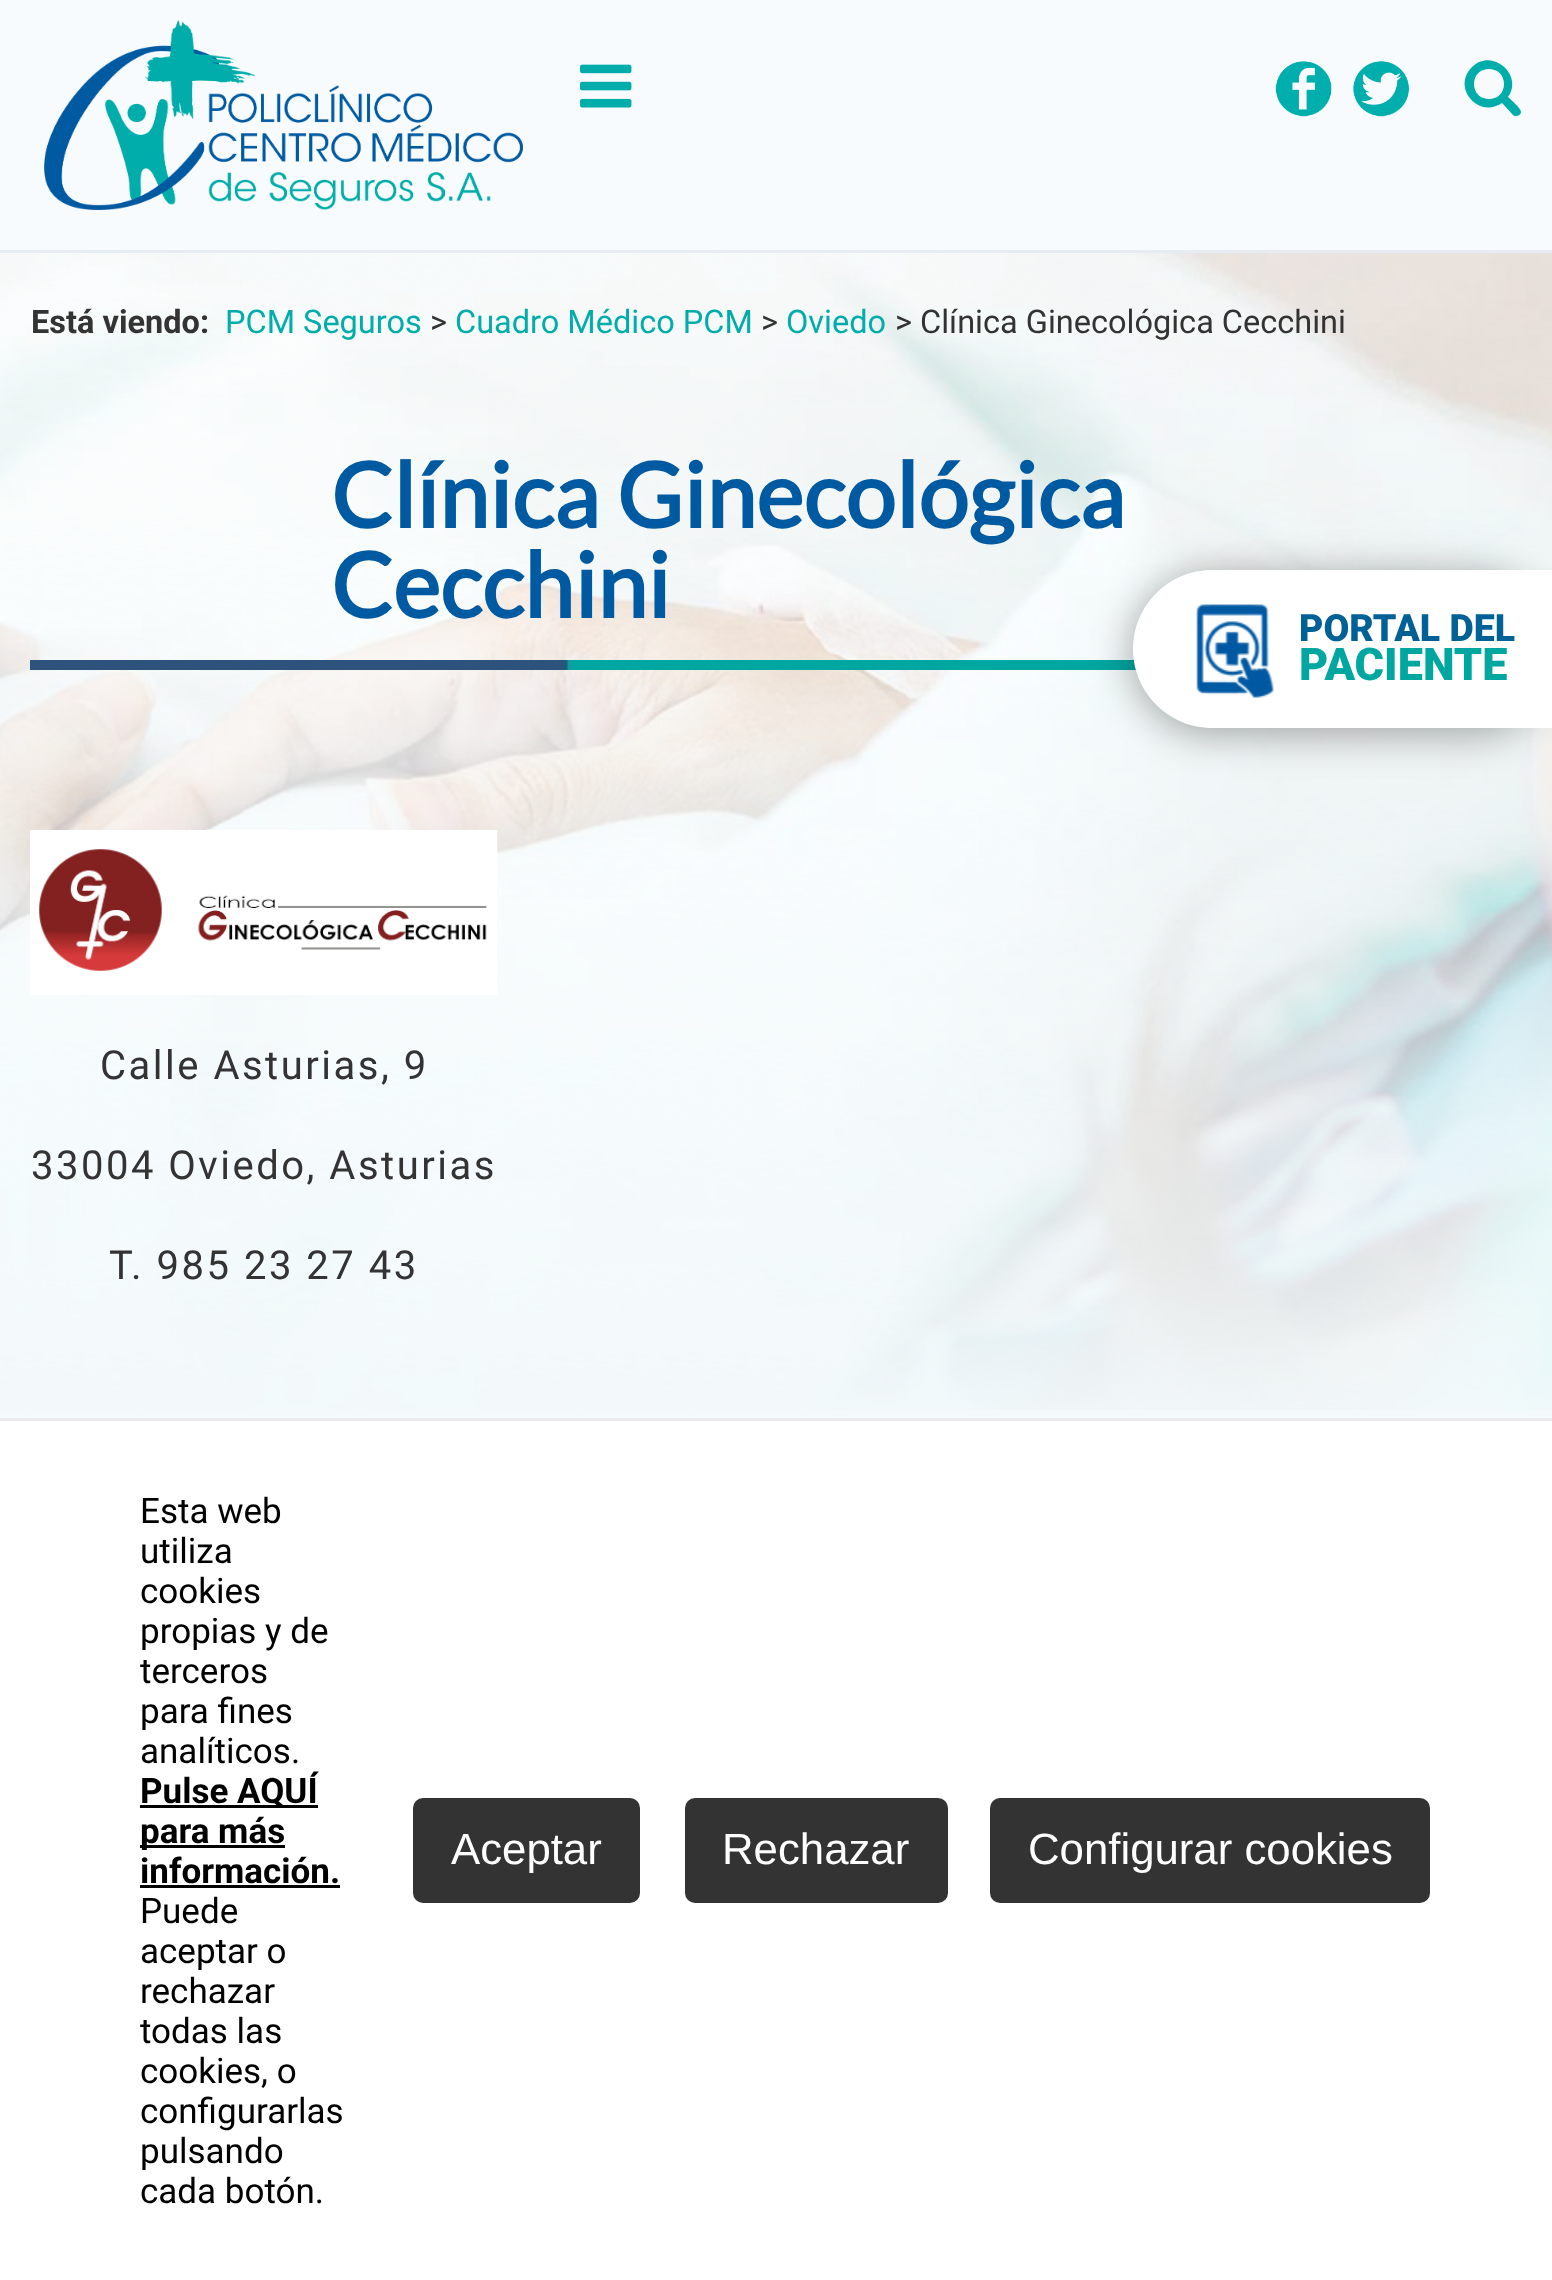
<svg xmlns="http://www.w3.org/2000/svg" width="1552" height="2280">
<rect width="100%" height="100%" fill="#f4fafc"/>
<rect width="1552" height="250" fill="#f7fbfd"/>
<rect y="250" width="1552" height="3" fill="#e6ecf2"/>
<image x="44" y="20" width="479" height="190" href="media/1.png"/>
<image x="580" y="64" width="52" height="44" href="media/2.png"/>
<image x="1275" y="61" width="57" height="56" href="media/3.png"/>
<image x="1353" y="61" width="56" height="56" href="media/4.png"/>
<path d="M1504 84c0 20-30 20-30 0c0-20 30-20 30 0zm17 28c0-4-10-12-13-15c16-22-16-50-36-30c-21 21 7 52 30 36l11 12c1 1 2 1 3 1c3 0 5-2 5-4z" fill="#00adaa"/>
<image x="0" y="253" width="1552" height="1157" href="media/5.png"/>
<text x="31" y="333" style="font-family:Roboto;font-size:32.5px;font-weight:bold;fill:#333">Está viendo:</text>
<text x="225" y="333" style="font-family:Roboto;font-size:32.5px;fill:#00adaa">PCM Seguros</text>
<text x="430" y="333" style="font-family:Roboto;font-size:32.5px;fill:#333">&gt;</text>
<text x="455" y="333" style="font-family:Roboto;font-size:32.5px;fill:#00adaa">Cuadro Médico PCM</text>
<text x="761" y="333" style="font-family:Roboto;font-size:32.5px;fill:#333">&gt;</text>
<text x="786" y="333" style="font-family:Roboto;font-size:32.5px;fill:#00adaa">Oviedo</text>
<text x="895" y="333" style="font-family:Roboto;font-size:32.5px;fill:#333">&gt; Clínica Ginecológica Cecchini</text>
<image x="30" y="660" width="1106" height="10" href="media/6.png"/>
<text x="331" y="528" style="font-family:Lato;font-size:90px;font-weight:bold;fill:#005aa2">Clínica Ginecológica</text>
<text x="331" y="618" style="font-family:Lato;font-size:90px;font-weight:bold;fill:#005aa2">Cecchini</text>
<image x="30" y="830" width="468" height="165" href="media/7.png"/>
<text x="100" y="1079" style="font-family:Roboto;font-size:40px;letter-spacing:2.5px;fill:#333">Calle Asturias, 9</text>
<text x="31" y="1179" style="font-family:Roboto;font-size:40px;letter-spacing:2.5px;fill:#333">33004 Oviedo, Asturias</text>
<text x="109" y="1279" style="font-family:Roboto;font-size:40px;letter-spacing:2.5px;fill:#333">T. 985 23 27 43</text>
<rect x="1133" y="575" width="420" height="158" rx="79" fill="#00000059" filter="blur(20px)"/>
<path d="M1212 570h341v158h-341c-43.5 0-79-35.5-79-79c0-43.5 35.5-79 79-79z" fill="#fff"/>
<image x="1196" y="604" width="78" height="94" href="media/8.png"/>
<text x="1299" y="641" style="font-family:Roboto;font-size:37.5px;font-weight:900;fill:#006196">PORTAL DEL</text>
<text x="1299" y="680" style="font-family:Roboto;font-size:45px;font-weight:900;fill:#00a7a0">PACIENTE</text>
<rect y="1421" width="1552" height="859" fill="#fff"/>
<rect y="1418" width="1552" height="3" fill="#eaeaea"/>
<text x="140" y="1523" style="font-family:Roboto;font-size:35px;fill:#000">Esta web</text>
<text x="140" y="1563" style="font-family:Roboto;font-size:35px;fill:#000">utiliza</text>
<text x="140" y="1603" style="font-family:Roboto;font-size:35px;fill:#000">cookies</text>
<text x="140" y="1643" style="font-family:Roboto;font-size:35px;fill:#000">propias y de</text>
<text x="140" y="1683" style="font-family:Roboto;font-size:35px;fill:#000">terceros</text>
<text x="140" y="1723" style="font-family:Roboto;font-size:35px;fill:#000">para fines</text>
<text x="140" y="1763" style="font-family:Roboto;font-size:35px;fill:#000">analíticos.</text>
<rect x="140" y="1805" width="178" height="3" fill="#000"/>
<text x="140" y="1803" style="font-family:Roboto;font-size:35px;font-weight:bold;fill:#000">Pulse AQUÍ</text>
<rect x="140" y="1845" width="145" height="3" fill="#000"/>
<text x="140" y="1843" style="font-family:Roboto;font-size:35px;font-weight:bold;fill:#000">para más</text>
<text x="140" y="1883" style="font-family:Roboto;font-size:35px;font-weight:bold;fill:#000">información.</text>
<rect x="140" y="1885" width="200" height="3" fill="#000"/>
<text x="140" y="1923" style="font-family:Roboto;font-size:35px;fill:#000">Puede</text>
<text x="140" y="1963" style="font-family:Roboto;font-size:35px;fill:#000">aceptar o</text>
<text x="140" y="2003" style="font-family:Roboto;font-size:35px;fill:#000">rechazar</text>
<text x="140" y="2043" style="font-family:Roboto;font-size:35px;fill:#000">todas las</text>
<text x="140" y="2083" style="font-family:Roboto;font-size:35px;fill:#000">cookies, o</text>
<text x="140" y="2123" style="font-family:Roboto;font-size:35px;fill:#000">configurarlas</text>
<text x="140" y="2163" style="font-family:Roboto;font-size:35px;fill:#000">pulsando</text>
<text x="140" y="2203" style="font-family:Roboto;font-size:35px;fill:#000">cada botón.</text>
<rect x="413" y="1798" width="227" height="105" rx="10" fill="#333"/>
<text x="451" y="1864" style="font-family:Liberation Sans;font-size:43.75px;fill:#fff">Aceptar</text>
<rect x="685" y="1798" width="263" height="105" rx="10" fill="#333"/>
<text x="722" y="1864" style="font-family:Liberation Sans;font-size:43.75px;fill:#fff">Rechazar</text>
<rect x="990" y="1798" width="440" height="105" rx="10" fill="#333"/>
<text x="1028" y="1864" style="font-family:Liberation Sans;font-size:43.75px;fill:#fff">Configurar cookies</text>
</svg>
